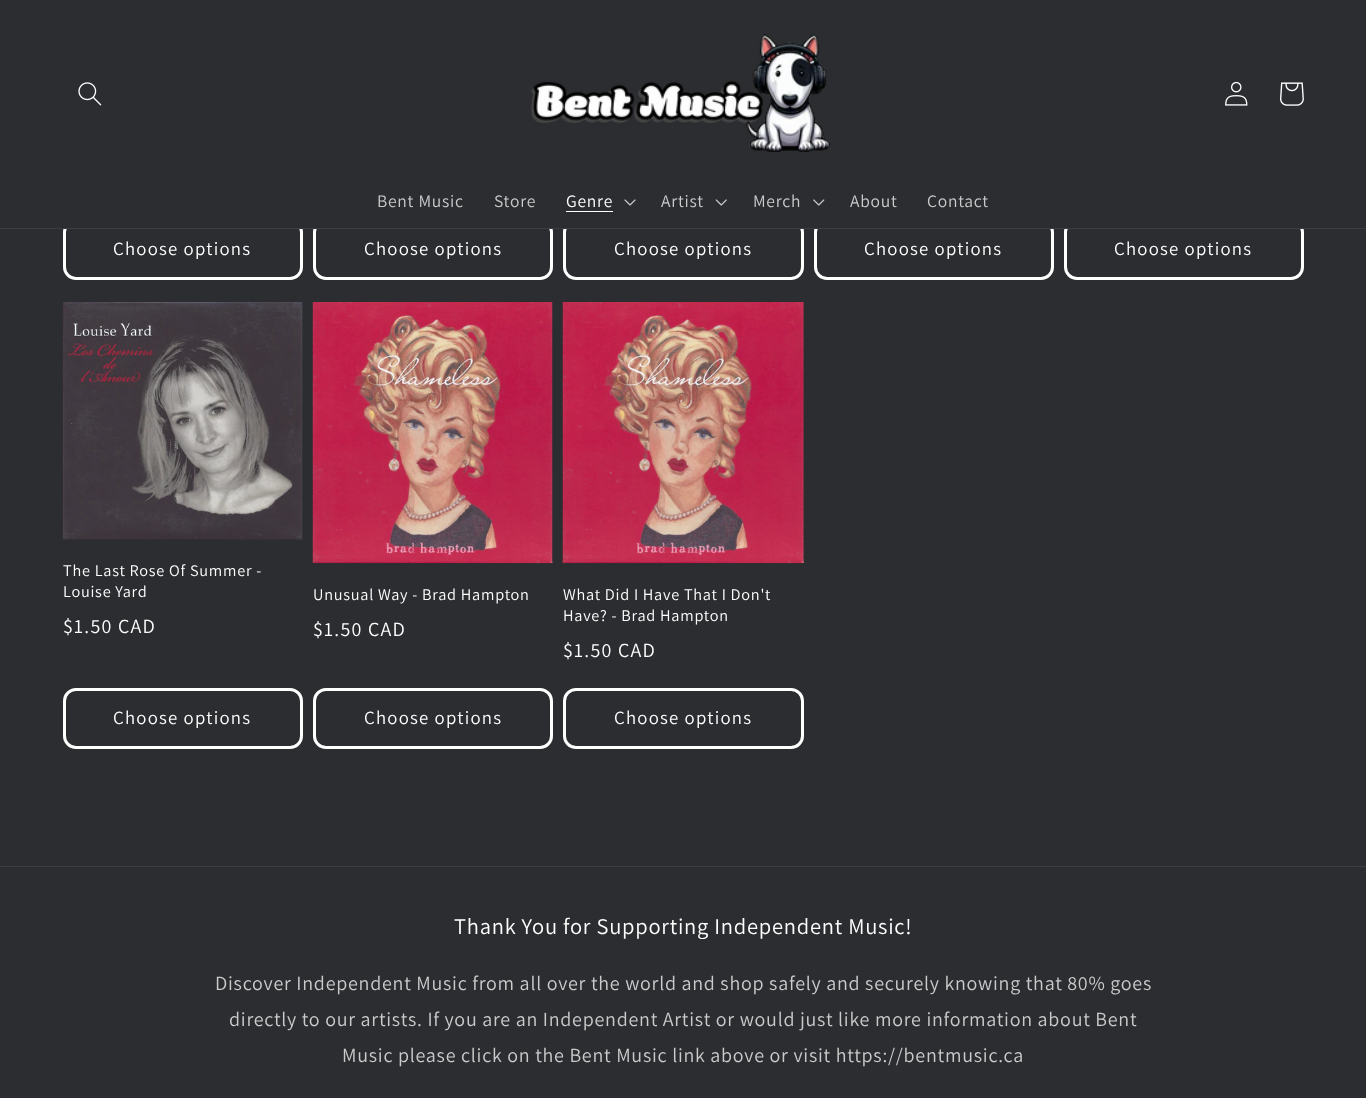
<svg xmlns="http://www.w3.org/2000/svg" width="1366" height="1098">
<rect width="100%" height="100%" fill="#2c2d30"/>
<rect x="64.5" y="220.5" width="237" height="58" rx="11.5" fill="none" stroke="#fff" stroke-width="3"/>
<rect x="314.5" y="220.5" width="237" height="58" rx="11.5" fill="none" stroke="#fff" stroke-width="3"/>
<rect x="564.5" y="220.5" width="238" height="58" rx="11.5" fill="none" stroke="#fff" stroke-width="3"/>
<rect x="815.5" y="220.5" width="237" height="58" rx="11.5" fill="none" stroke="#fff" stroke-width="3"/>
<rect x="1065.5" y="220.5" width="237" height="58" rx="11.5" fill="none" stroke="#fff" stroke-width="3"/>
<rect x="63" y="219" width="1241" height="9" fill="#2c2d30"/>
<rect y="228" width="1366" height="1" fill="#3d3e41"/>
<image x="78" y="82" width="24" height="24" href="media/1.png"/>
<image x="531" y="34" width="300" height="118" href="media/2.png"/>
<image x="1225" y="81" width="23" height="25" href="media/3.png"/>
<image x="1280" y="82" width="24" height="24" href="media/4.png"/>
<text x="377" y="207" style="font-family:Assistant;font-size:17.5px;letter-spacing:0.75px;fill:#cacbcb">Bent Music</text>
<text x="494" y="207" style="font-family:Assistant;font-size:17.5px;letter-spacing:0.75px;fill:#cacbcb">Store</text>
<text x="566" y="207" style="font-family:Assistant;font-size:17.5px;letter-spacing:0.75px;fill:#fff">Genre</text>
<rect x="566" y="211" width="47" height="1" fill="#fff"/>
<image x="624" y="199" width="12" height="7" href="media/5.png"/>
<text x="661" y="207" style="font-family:Assistant;font-size:17.5px;letter-spacing:0.75px;fill:#cacbcb">Artist</text>
<image x="715" y="199" width="12" height="7" href="media/6.png"/>
<text x="753" y="207" style="font-family:Assistant;font-size:17.5px;letter-spacing:0.75px;fill:#cacbcb">Merch</text>
<image x="813" y="199" width="12" height="7" href="media/7.png"/>
<text x="850" y="207" style="font-family:Assistant;font-size:17.5px;letter-spacing:0.75px;fill:#cacbcb">About</text>
<text x="927" y="207" style="font-family:Assistant;font-size:17.5px;letter-spacing:0.75px;fill:#cacbcb">Contact</text>
<text x="113" y="255" style="font-family:Assistant;font-size:18.75px;letter-spacing:1.25px;fill:#fff">Choose options</text>
<text x="364" y="255" style="font-family:Assistant;font-size:18.75px;letter-spacing:1.25px;fill:#fff">Choose options</text>
<text x="614" y="255" style="font-family:Assistant;font-size:18.75px;letter-spacing:1.25px;fill:#fff">Choose options</text>
<text x="864" y="255" style="font-family:Assistant;font-size:18.75px;letter-spacing:1.25px;fill:#fff">Choose options</text>
<text x="1114" y="255" style="font-family:Assistant;font-size:18.75px;letter-spacing:1.25px;fill:#fff">Choose options</text>
<image x="62" y="302" width="241" height="238" href="media/8.png"/>
<text x="63" y="576" style="font-family:Assistant;font-size:16.25px;letter-spacing:0.75px;fill:#fff">The Last Rose Of Summer -</text>
<text x="63" y="597" style="font-family:Assistant;font-size:16.25px;letter-spacing:0.75px;fill:#fff">Louise Yard</text>
<text x="63" y="633" style="font-family:Assistant;font-size:20px;letter-spacing:1.25px;fill:#fff">$1.50 CAD</text>
<rect x="64.5" y="689.5" width="237" height="58" rx="11.5" fill="none" stroke="#fff" stroke-width="3"/>
<text x="113" y="724" style="font-family:Assistant;font-size:18.75px;letter-spacing:1.25px;fill:#fff">Choose options</text>
<image x="312" y="302" width="241" height="262" href="media/9.png"/>
<text x="313" y="600" style="font-family:Assistant;font-size:16.25px;letter-spacing:0.75px;fill:#fff">Unusual Way - Brad Hampton</text>
<text x="313" y="636" style="font-family:Assistant;font-size:20px;letter-spacing:1.25px;fill:#fff">$1.50 CAD</text>
<rect x="314.5" y="689.5" width="237" height="58" rx="11.5" fill="none" stroke="#fff" stroke-width="3"/>
<text x="364" y="724" style="font-family:Assistant;font-size:18.75px;letter-spacing:1.25px;fill:#fff">Choose options</text>
<image x="562" y="302" width="242" height="262" href="media/10.png"/>
<text x="563" y="600" style="font-family:Assistant;font-size:16.25px;letter-spacing:0.75px;fill:#fff">What Did I Have That I Don't</text>
<text x="563" y="621" style="font-family:Assistant;font-size:16.25px;letter-spacing:0.75px;fill:#fff">Have? - Brad Hampton</text>
<text x="563" y="657" style="font-family:Assistant;font-size:20px;letter-spacing:1.25px;fill:#fff">$1.50 CAD</text>
<rect x="564.5" y="689.5" width="238" height="58" rx="11.5" fill="none" stroke="#fff" stroke-width="3"/>
<text x="614" y="724" style="font-family:Assistant;font-size:18.75px;letter-spacing:1.25px;fill:#fff">Choose options</text>
<rect y="866" width="1366" height="1" fill="#3d3e41"/>
<text x="454" y="934" style="font-family:Assistant;font-size:22.5px;letter-spacing:0.75px;fill:#fff">Thank You for Supporting Independent Music!</text>
<text x="215" y="990" style="font-family:Assistant;font-size:20px;letter-spacing:0.75px;fill:#cacbcb">Discover Independent Music from all over the world and shop safely and securely knowing that 80% goes</text>
<text x="229" y="1026" style="font-family:Assistant;font-size:20px;letter-spacing:0.75px;fill:#cacbcb">directly to our artists. If you are an Independent Artist or would just like more information about Bent</text>
<text x="342" y="1062" style="font-family:Assistant;font-size:20px;letter-spacing:0.75px;fill:#cacbcb">Music please click on the Bent Music link above or visit https://bentmusic.ca</text>
</svg>
